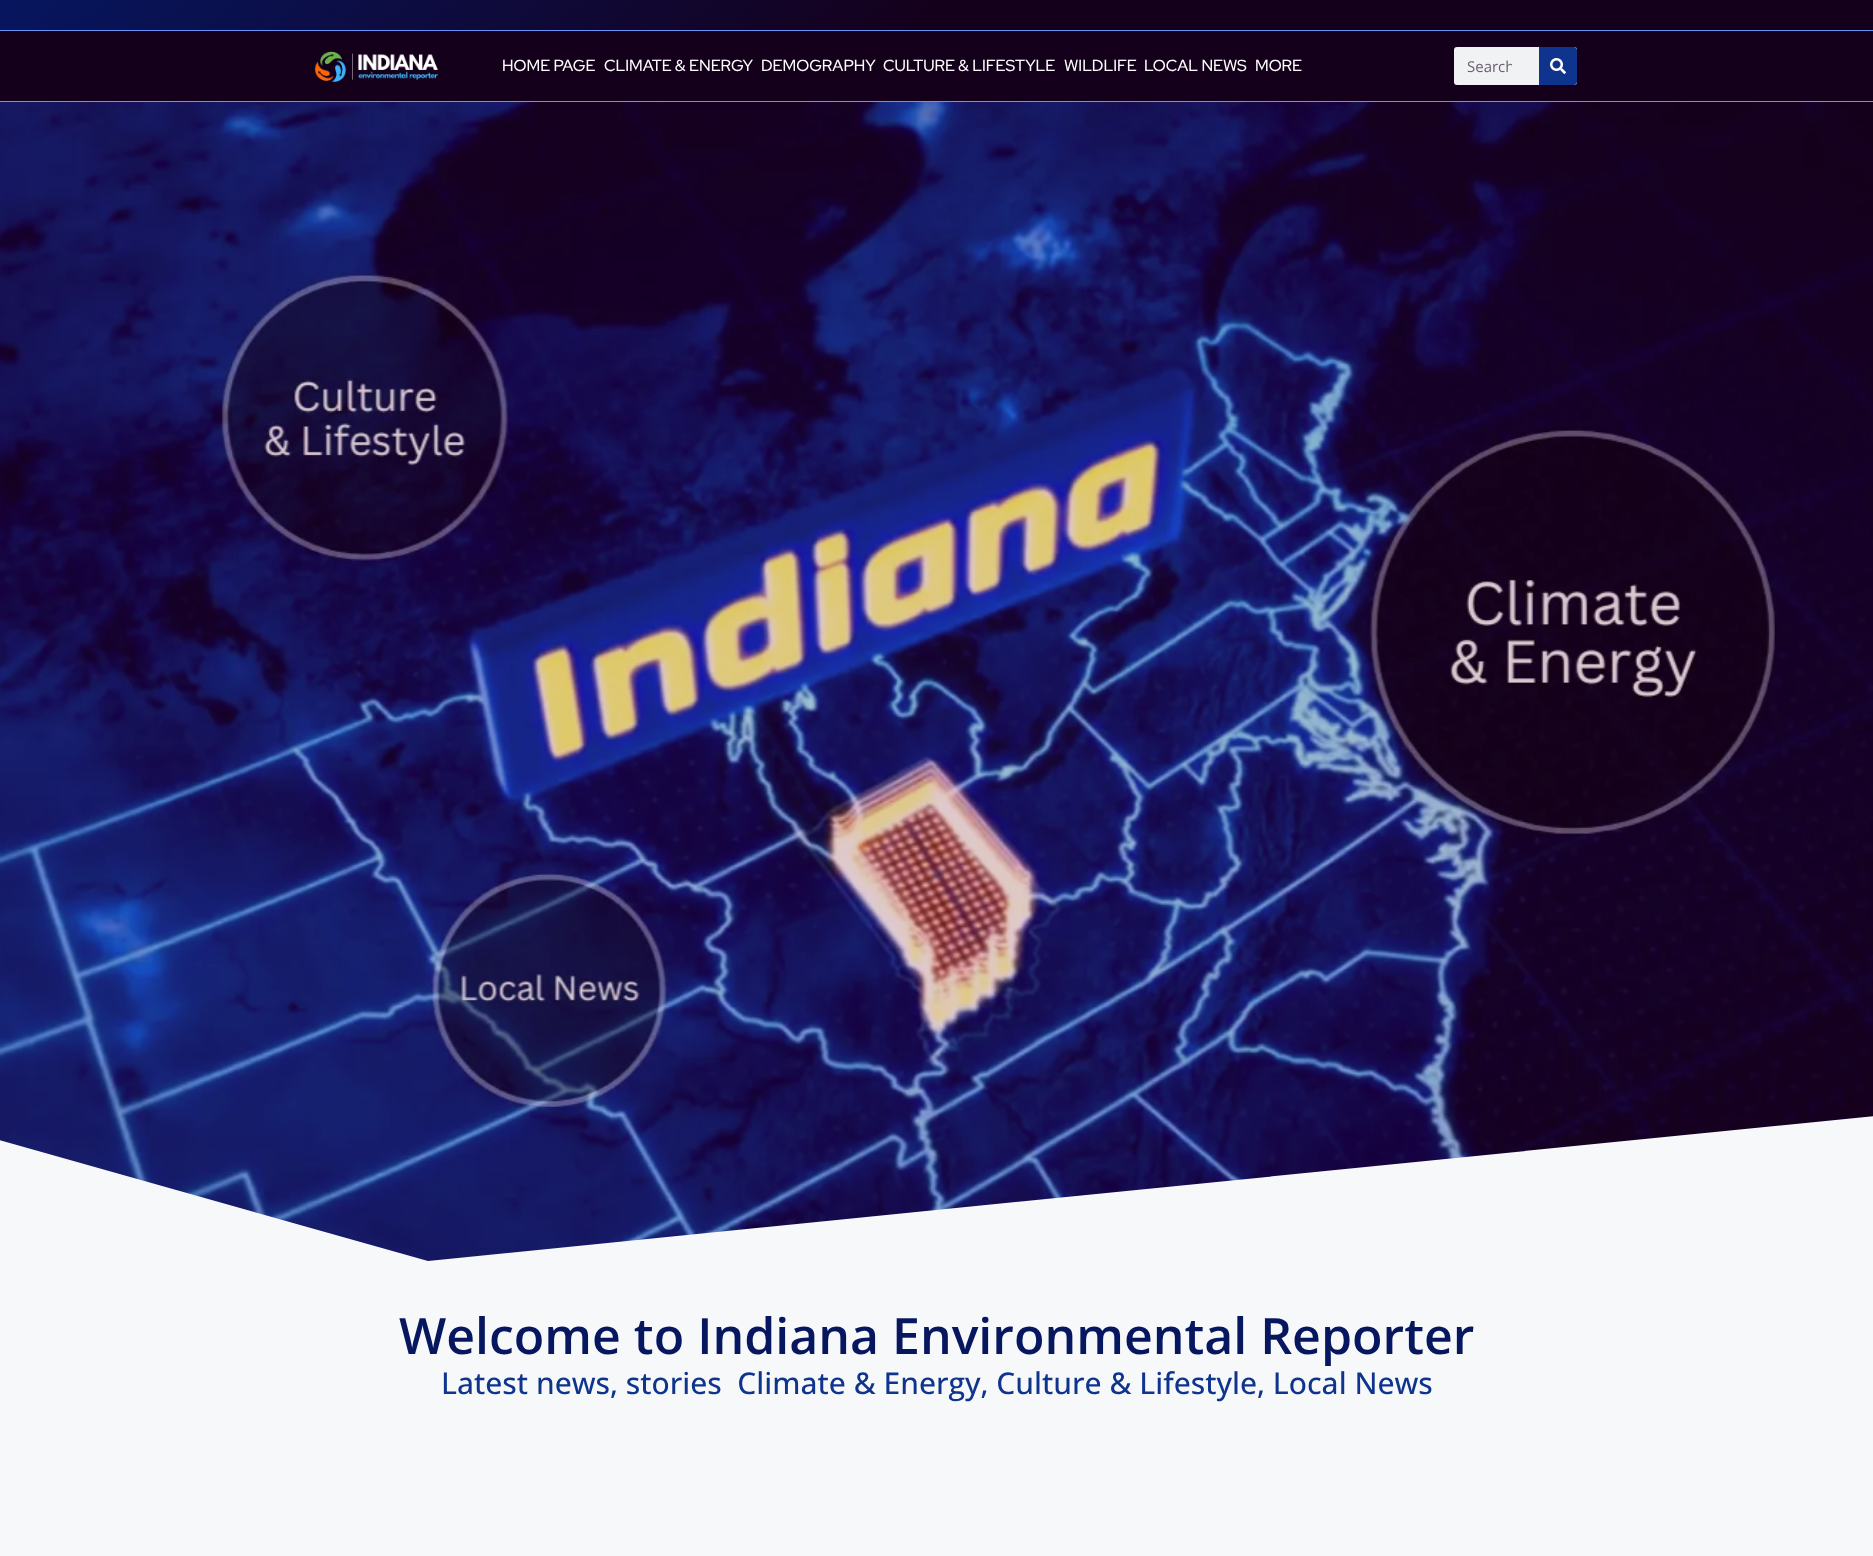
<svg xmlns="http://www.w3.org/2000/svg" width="1873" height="1556">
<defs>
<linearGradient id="g1" gradientUnits="userSpaceOnUse" x1="558" y1="-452" x2="1315" y2="482"><stop offset="0" stop-color="#06165f"/><stop offset="0.5" stop-color="#15001b"/></linearGradient>
<clipPath id="clip1"><rect x="1467" y="56" width="45" height="20"/></clipPath>
</defs>
<rect width="100%" height="100%" fill="#f7f8f9"/>
<rect width="1873" height="30" fill="url(#g1)"/>
<rect y="31" width="1873" height="70" fill="#15001b"/>
<rect y="30" width="1873" height="1" fill="#6893f8"/>
<rect y="101" width="1873" height="1" fill="#6893f8"/>
<image x="314" y="51" width="125" height="31" href="media/1.png"/>
<text x="502" y="71" style="font-family:Red Hat Display;font-size:16px;font-weight:500;fill:#fff">HOME PAGE</text>
<text x="604" y="71" style="font-family:Red Hat Display;font-size:16px;font-weight:500;fill:#fff">CLIMATE &amp; ENERGY</text>
<text x="761" y="71" style="font-family:Red Hat Display;font-size:16px;font-weight:500;fill:#fff">DEMOGRAPHY</text>
<text x="883" y="71" style="font-family:Red Hat Display;font-size:16px;font-weight:500;fill:#fff">CULTURE &amp; LIFESTYLE</text>
<text x="1064" y="71" style="font-family:Red Hat Display;font-size:16px;font-weight:500;fill:#fff">WILDLIFE</text>
<text x="1144" y="71" style="font-family:Red Hat Display;font-size:16px;font-weight:500;fill:#fff">LOCAL NEWS</text>
<text x="1255" y="71" style="font-family:Red Hat Display;font-size:16px;font-weight:500;fill:#fff">MORE</text>
<rect x="1454" y="47" width="123" height="38" rx="3" fill="#f1f2f3"/>
<g clip-path="url(#clip1)">
<text x="1467" y="72" style="font-family:Open Sans;font-size:15px;fill:#6d6171">Search</text>
</g>
<path d="M1539 47h35c1.5 0 3 1.5 3 3v32c0 1.5-1.5 3-3 3h-35z" fill="#0e348e"/>
<image x="1550" y="58" width="16" height="16" href="media/2.png"/>
<image x="0" y="102" width="1873" height="1159" href="media/3.png"/>
<path d="M428 1261l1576-158v167h-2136v-167z" fill="#f7f8f9"/>
<text x="399" y="1354" style="font-family:Open Sans;font-size:50px;font-weight:600;fill:#06165f">Welcome to Indiana Environmental Reporter</text>
<text x="441" y="1394" style="font-family:Open Sans;font-size:30px;font-weight:500;fill:#0e348e" xml:space="preserve">Latest news, stories  Climate &amp; Energy, Culture &amp; Lifestyle, Local News</text>
</svg>
